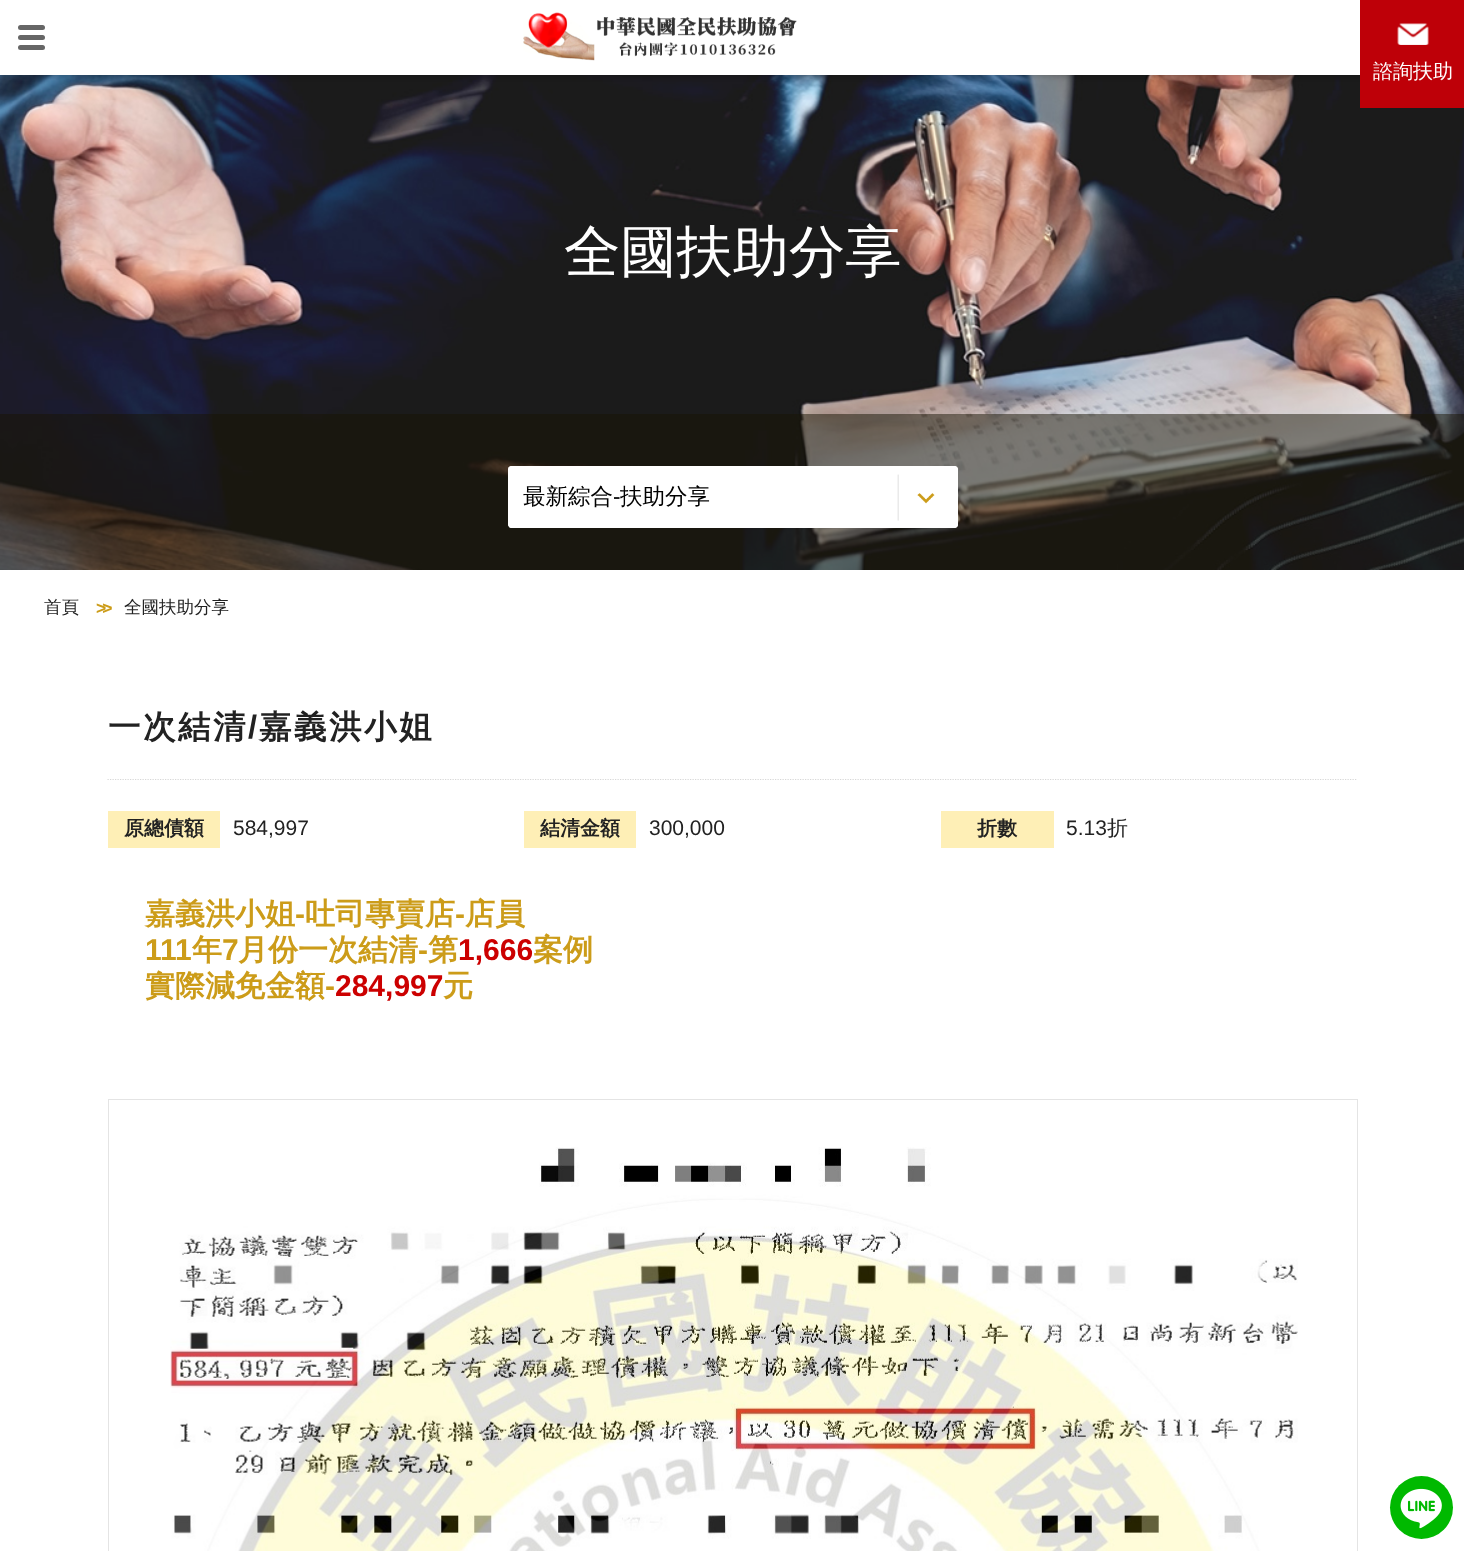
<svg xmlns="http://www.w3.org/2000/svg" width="1464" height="1551">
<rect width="100%" height="100%" fill="#fff"/>
<image x="0" y="75" width="1464" height="495" href="media/3.png"/>
<rect width="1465" height="75" fill="#0000004d" filter="blur(3px)"/>
<rect width="1360" height="75" fill="#fff"/>
<rect x="18" y="25" width="27" height="5" rx="2.5" fill="#666"/>
<rect x="18" y="35" width="27" height="5" rx="2.5" fill="#666"/>
<rect x="18" y="45" width="27" height="5" rx="2.5" fill="#666"/>
<image x="523" y="12" width="274" height="49" href="media/1.png"/>
<rect x="1360" width="104" height="108" fill="#be0008"/>
<image x="1397" y="23" width="32" height="22" href="media/2.png"/>
<text x="1373" y="78" style="font-family:WenQuanYi Zen Hei;font-size:20px;font-weight:500;fill:#fff">諮詢扶助</text>
<text x="564" y="271" style="font-family:WenQuanYi Zen Hei;font-size:56.25px;font-weight:500;fill:#fff">全國扶助分享</text>
<rect y="414" width="1464" height="156" fill="#18130380"/>
<rect x="508" y="466" width="450" height="62" rx="4" fill="#fff"/>
<image x="897" y="474" width="38" height="47" href="media/4.png"/>
<rect x="509.5" y="467.5" width="447" height="59" rx="2.5" fill="none" stroke="#fff" stroke-width="3"/>
<text x="523" y="504" style="font-family:WenQuanYi Zen Hei;font-size:22.5px;font-weight:500;fill:#000">最新綜合</text>
<text x="613" y="504" style="font-family:Liberation Sans;font-size:22.5px;fill:#000">-</text>
<text x="620" y="504" style="font-family:WenQuanYi Zen Hei;font-size:22.5px;font-weight:500;fill:#000">扶助分享</text>
<text x="44" y="613" style="font-family:WenQuanYi Zen Hei;font-size:17.5px;font-weight:500;fill:#222">首頁</text>
<text x="96" y="614" style="font-family:Liberation Sans;font-size:17.5px;font-weight:bold;letter-spacing:-4px;fill:#cc9c19">&gt;&gt;</text>
<text x="124" y="613" style="font-family:WenQuanYi Zen Hei;font-size:17.5px;font-weight:500;fill:#222">全國扶助分享</text>
<path d="M107.5 779.5h1250" fill="none" stroke="#d7d7d7" stroke-width="1.2" stroke-dasharray="1.25 1.25"/>
<text x="108" y="738" style="font-family:WenQuanYi Zen Hei;font-size:32.5px;font-weight:bold;letter-spacing:2.5px;fill:#222">一次結清</text>
<text x="248" y="738" style="font-family:Liberation Sans;font-size:32.5px;font-weight:bold;letter-spacing:2.5px;fill:#222">/</text>
<text x="259" y="738" style="font-family:WenQuanYi Zen Hei;font-size:32.5px;font-weight:bold;letter-spacing:2.5px;fill:#222">嘉義洪小姐</text>
<rect x="108" y="811" width="112" height="37" fill="#feefb6"/>
<text x="124" y="835" style="font-family:WenQuanYi Zen Hei;font-size:20px;font-weight:bold;fill:#222">原總債額</text>
<text x="233" y="835" style="font-family:Liberation Sans;font-size:21px;fill:#222">584,997</text>
<rect x="524" y="811" width="112" height="37" fill="#feefb6"/>
<text x="540" y="835" style="font-family:WenQuanYi Zen Hei;font-size:20px;font-weight:bold;fill:#222">結清金額</text>
<text x="649" y="835" style="font-family:Liberation Sans;font-size:21px;fill:#222">300,000</text>
<rect x="941" y="811" width="113" height="37" fill="#feefb6"/>
<text x="977" y="835" style="font-family:WenQuanYi Zen Hei;font-size:20px;font-weight:bold;fill:#222">折數</text>
<text x="1066" y="835" style="font-family:Liberation Sans;font-size:21px;fill:#222">5.13</text>
<text x="1107" y="835" style="font-family:WenQuanYi Zen Hei;font-size:21px;font-weight:500;fill:#222">折</text>
<text x="145" y="924" style="font-family:WenQuanYi Zen Hei;font-size:30px;font-weight:bold;fill:#cc9c19">嘉義洪小姐</text>
<text x="295" y="924" style="font-family:Liberation Sans;font-size:30px;font-weight:bold;fill:#cc9c19">-</text>
<text x="305" y="924" style="font-family:WenQuanYi Zen Hei;font-size:30px;font-weight:bold;fill:#cc9c19">吐司專賣店</text>
<text x="455" y="924" style="font-family:Liberation Sans;font-size:30px;font-weight:bold;fill:#cc9c19">-</text>
<text x="465" y="924" style="font-family:WenQuanYi Zen Hei;font-size:30px;font-weight:bold;fill:#cc9c19">店員</text>
<text x="145" y="960" style="font-family:Liberation Sans;font-size:30px;font-weight:bold;fill:#cc9c19">111</text>
<text x="192" y="960" style="font-family:WenQuanYi Zen Hei;font-size:30px;font-weight:bold;fill:#cc9c19">年</text>
<text x="222" y="960" style="font-family:Liberation Sans;font-size:30px;font-weight:bold;fill:#cc9c19">7</text>
<text x="238" y="960" style="font-family:WenQuanYi Zen Hei;font-size:30px;font-weight:bold;fill:#cc9c19">月份一次結清</text>
<text x="418" y="960" style="font-family:Liberation Sans;font-size:30px;font-weight:bold;fill:#cc9c19">-</text>
<text x="428" y="960" style="font-family:WenQuanYi Zen Hei;font-size:30px;font-weight:bold;fill:#cc9c19">第</text>
<text x="458" y="960" style="font-family:Liberation Sans;font-size:30px;font-weight:bold;fill:#c00">1,666</text>
<text x="533" y="960" style="font-family:WenQuanYi Zen Hei;font-size:30px;font-weight:bold;fill:#cc9c19">案例</text>
<text x="145" y="996" style="font-family:WenQuanYi Zen Hei;font-size:30px;font-weight:bold;fill:#cc9c19">實際減免金額</text>
<text x="325" y="996" style="font-family:Liberation Sans;font-size:30px;font-weight:bold;fill:#cc9c19">-</text>
<text x="335" y="996" style="font-family:Liberation Sans;font-size:30px;font-weight:bold;fill:#c00">284,997</text>
<text x="443" y="996" style="font-family:WenQuanYi Zen Hei;font-size:30px;font-weight:bold;fill:#cc9c19">元</text>
<image x="170" y="1147" width="1128" height="404" href="media/5.png"/>
<rect x="108.5" y="1099.5" width="1249" height="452" fill="none" stroke="#e4e4e4"/>
<circle cx="1421.5" cy="1507.5" r="31.5" fill="#00b900"/>
<image x="1400" y="1488" width="42" height="41" href="media/6.png"/>
</svg>
